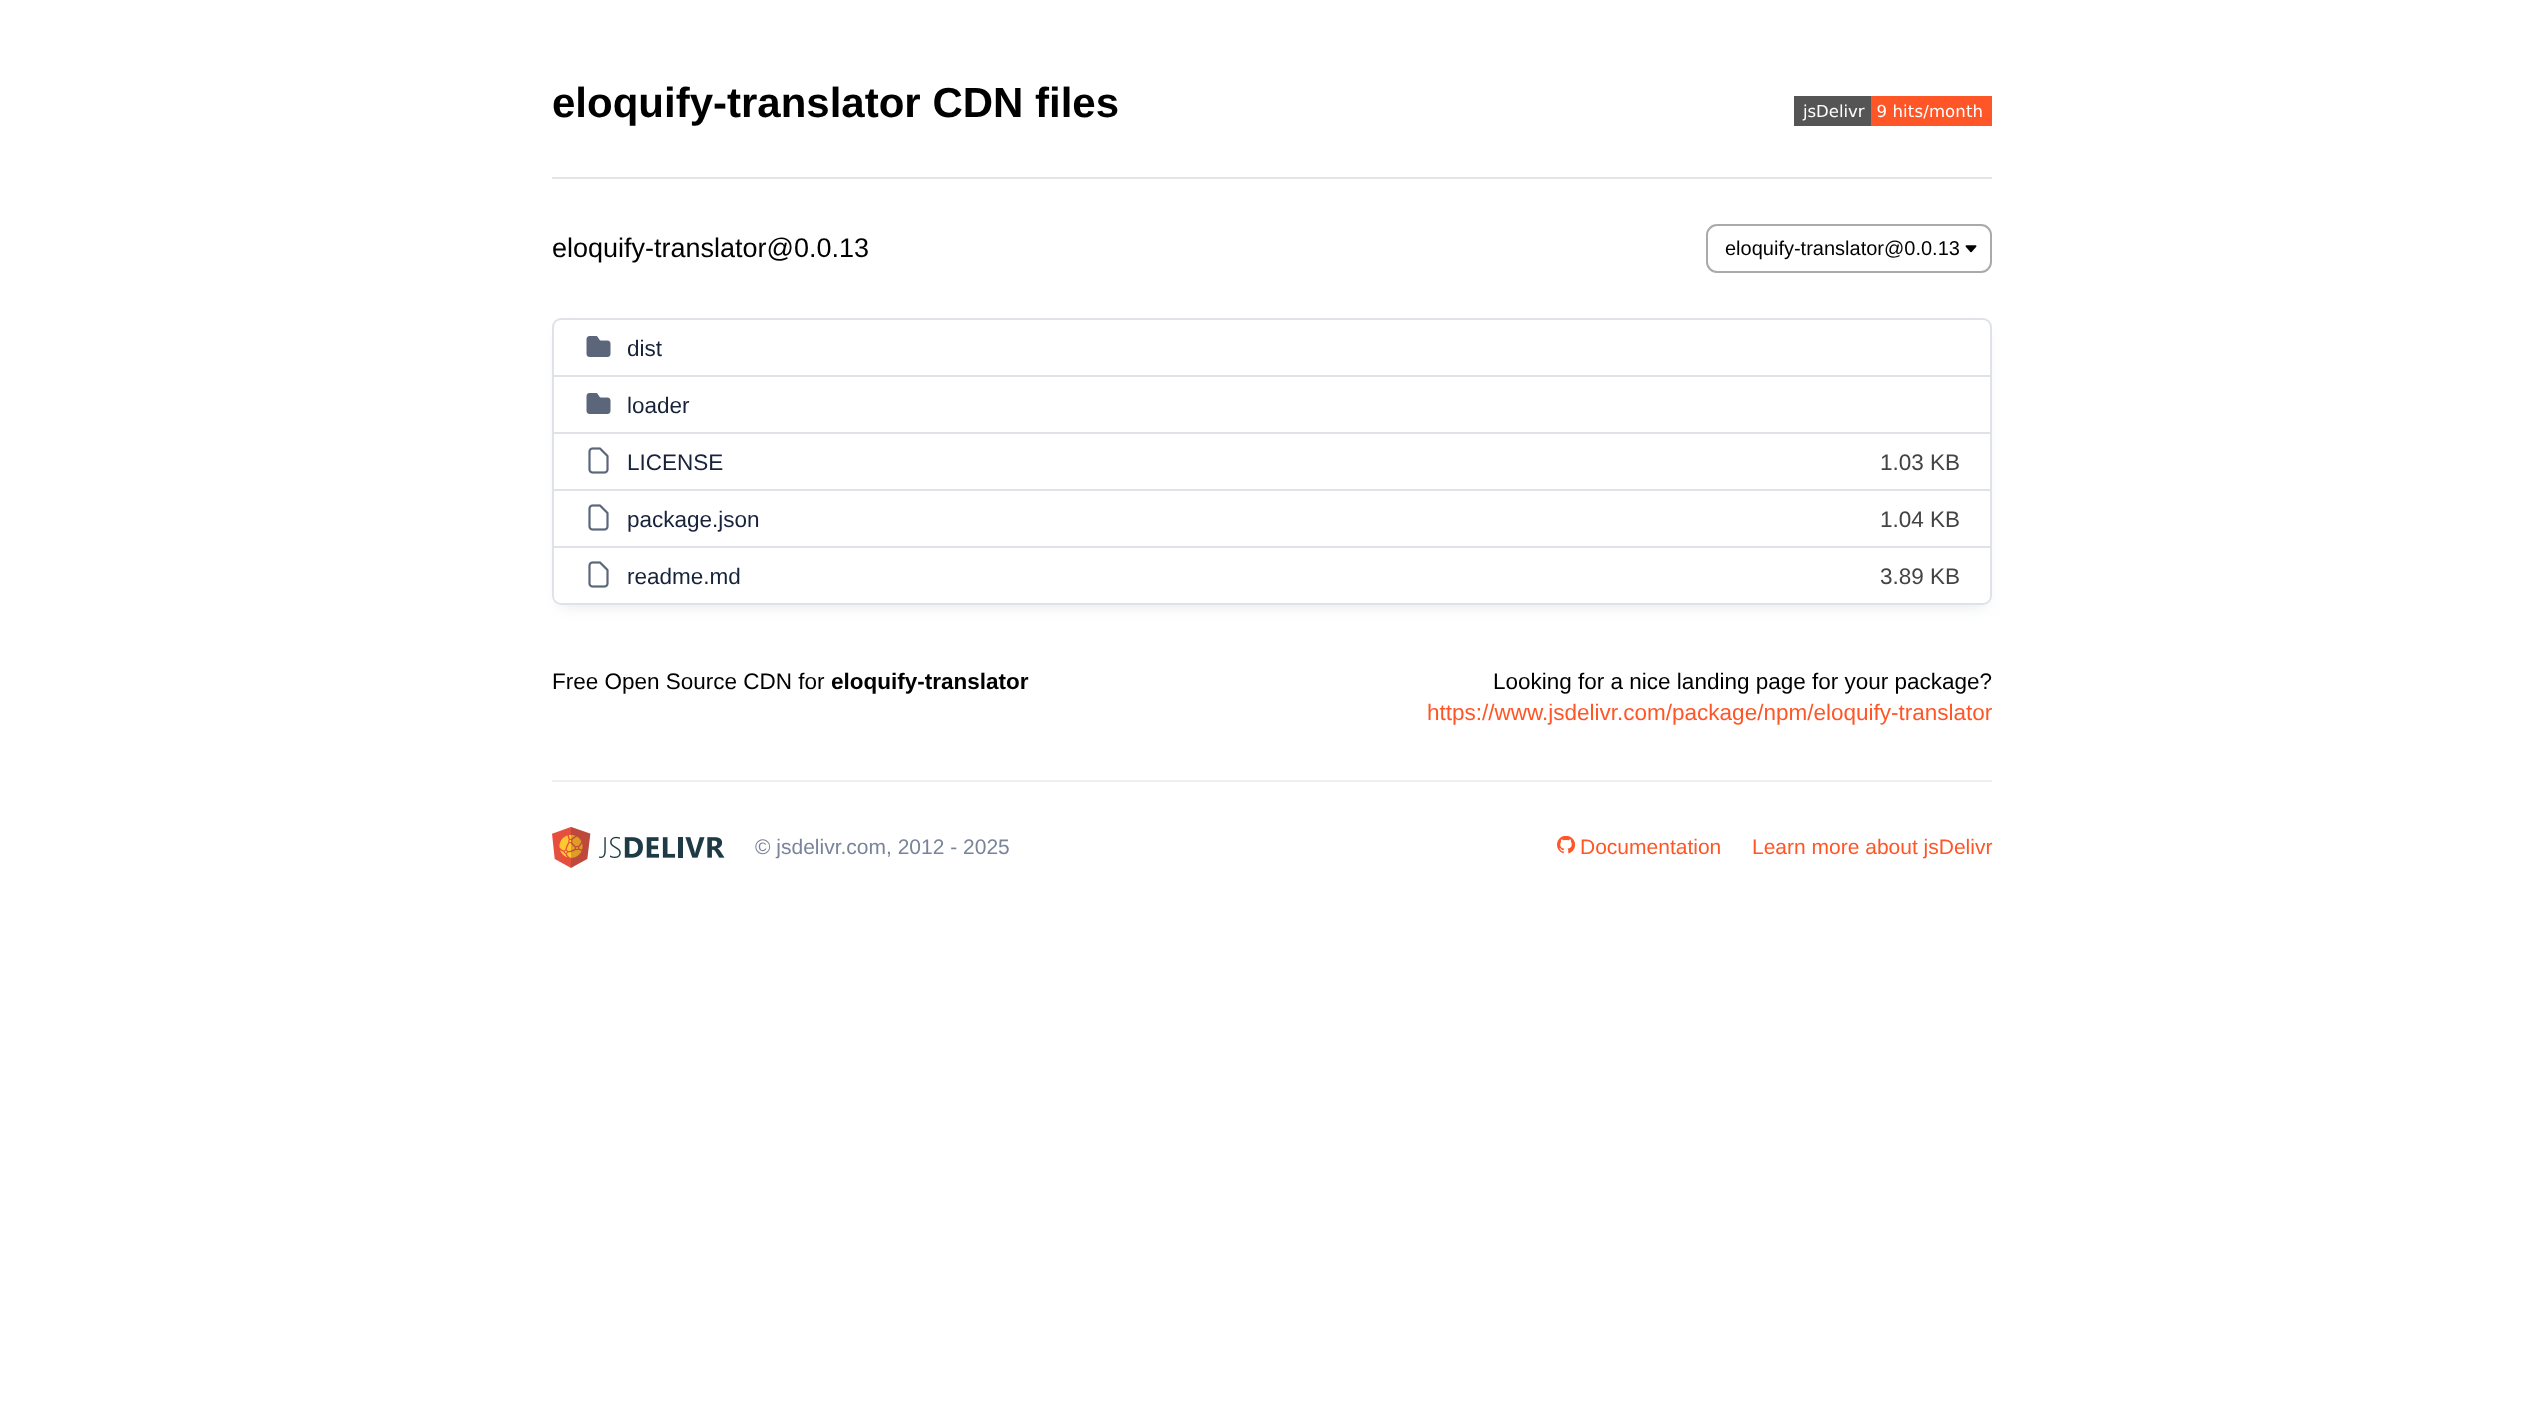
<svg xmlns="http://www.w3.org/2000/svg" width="2544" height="1422">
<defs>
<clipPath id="clip1"><path d="M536 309h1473v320h-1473zm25 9h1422c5 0 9 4 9 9v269c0 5-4 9-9 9h-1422c-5 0-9-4-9-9v-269c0-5 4-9 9-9z" clip-rule="evenodd"/></clipPath>
</defs>
<rect width="100%" height="100%" fill="#fff"/>
<text x="552" y="117" style="font-family:Liberation Sans;font-size:42px;font-weight:bold;fill:#000">eloquify-translator CDN files</text>
<image x="1794" y="96" width="198" height="30" href="media/1.png"/>
<rect x="552" y="177" width="1440" height="2" fill="#e5e5e5"/>
<text x="552" y="257" style="font-family:Liberation Sans;font-size:27px;fill:#000">eloquify-translator@0.0.13</text>
<image x="1965" y="245" width="12" height="8" href="media/2.png"/>
<rect x="1707" y="225" width="284" height="47" rx="10" fill="none" stroke="#aaa" stroke-width="2"/>
<text x="1725" y="255" style="font-family:Liberation Sans;font-size:20px;fill:#000">eloquify-translator@0.0.13</text>
<g clip-path="url(#clip1)">
<rect x="560" y="333" width="1425" height="272" rx="1.5" fill="#dfe3e7" filter="blur(7.5px)"/>
</g>
<rect x="553" y="319" width="1438" height="285" rx="8" fill="none" stroke="#dfe3e7" stroke-width="2"/>
<rect x="554" y="375" width="1437" height="2" fill="#dfe3e7"/>
<image x="586" y="336" width="25" height="21" href="media/3.png"/>
<text x="627" y="356" style="font-family:Liberation Sans;font-size:22.5px;fill:#17233b">dist</text>
<rect x="554" y="432" width="1437" height="2" fill="#dfe3e7"/>
<image x="586" y="393" width="25" height="21" href="media/3.png"/>
<text x="627" y="413" style="font-family:Liberation Sans;font-size:22.5px;fill:#17233b">loader</text>
<rect x="554" y="489" width="1437" height="2" fill="#dfe3e7"/>
<image x="588" y="447" width="21" height="27" href="media/4.png"/>
<text x="627" y="470" style="font-family:Liberation Sans;font-size:22.5px;fill:#17233b">LICENSE</text>
<text x="1880" y="470" style="font-family:Liberation Sans;font-size:22.5px;fill:#444">1.03 KB</text>
<rect x="554" y="546" width="1437" height="2" fill="#dfe3e7"/>
<image x="588" y="504" width="21" height="27" href="media/4.png"/>
<text x="627" y="527" style="font-family:Liberation Sans;font-size:22.5px;fill:#17233b">package.json</text>
<text x="1880" y="527" style="font-family:Liberation Sans;font-size:22.5px;fill:#444">1.04 KB</text>
<image x="588" y="561" width="21" height="27" href="media/4.png"/>
<text x="627" y="584" style="font-family:Liberation Sans;font-size:22.5px;fill:#17233b">readme.md</text>
<text x="1880" y="584" style="font-family:Liberation Sans;font-size:22.5px;fill:#444">3.89 KB</text>
<text x="552" y="689" style="font-family:Liberation Sans;font-size:22.5px;fill:#000">Free Open Source CDN for</text>
<text x="831" y="689" style="font-family:Liberation Sans;font-size:22.5px;font-weight:bold;fill:#000">eloquify-translator</text>
<text x="1493" y="689" style="font-family:Liberation Sans;font-size:22.5px;fill:#000">Looking for a nice landing page for your package?</text>
<text x="1427" y="720" style="font-family:Liberation Sans;font-size:22.5px;fill:#ff5627">https://www.jsdelivr.com/package/npm/eloquify-translator</text>
<rect x="552" y="780" width="1440" height="2" fill="#edf0f2"/>
<image x="552" y="827" width="173" height="41" href="media/5.png"/>
<text x="755" y="854" style="font-family:Liberation Sans;font-size:21px;fill:#79849a">© jsdelivr.com, 2012 - 2025</text>
<image x="1557" y="836" width="18" height="18" href="media/6.png"/>
<text x="1580" y="854" style="font-family:Liberation Sans;font-size:21px;fill:#ff5627">Documentation</text>
<text x="1752" y="854" style="font-family:Liberation Sans;font-size:21px;fill:#ff5627">Learn more about jsDelivr</text>
</svg>
